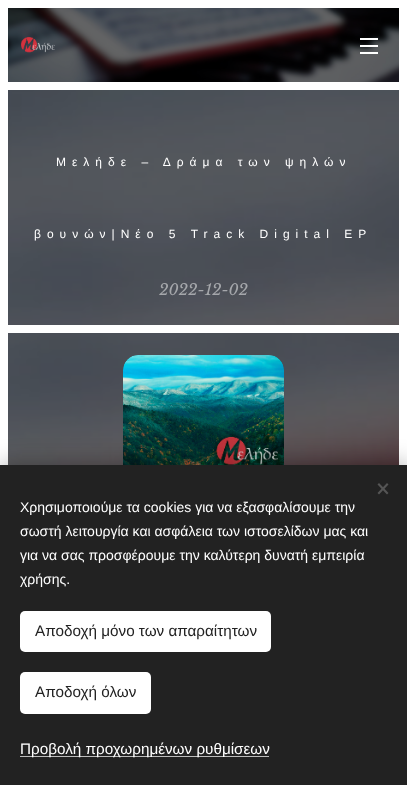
<svg xmlns="http://www.w3.org/2000/svg" width="407" height="785">
<rect width="100%" height="100%" fill="#fff"/>
<image x="8" y="8" width="391" height="74" href="media/1.png"/>
<image x="21" y="37" width="34" height="16" href="media/2.png"/>
<rect x="360" y="45" width="18" height="2" fill="#fff"/>
<rect x="360" y="38" width="18" height="2" fill="#fff"/>
<rect x="360" y="52" width="18" height="2" fill="#fff"/>
<image x="8" y="90" width="391" height="235" href="media/3.png"/>
<text x="56" y="166" style="font-family:Liberation Sans;font-size:12px;letter-spacing:6px;fill:#fff">Μελήδε – Δράμα των ψηλών</text>
<text x="34" y="238" style="font-family:Liberation Sans;font-size:12px;letter-spacing:6px;fill:#fff">βουνών|Νέο 5 Track Digital EP</text>
<text x="159" y="295" style="font-family:Libre Baskerville;font-size:15.25px;font-style:italic;fill:#a5a7ab">2022-12-02</text>
<image x="8" y="333" width="391" height="132" href="media/4.png"/>
<image x="123" y="355" width="161" height="110" href="media/5.png"/>
<rect y="465" width="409" height="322" fill="#00000054" filter="blur(12.5px)"/>
<rect y="465" width="407" height="320" fill="#222"/>
<path d="M377.5 493l9.5-10l1.5 1.5l-9.5 10z" fill="#555"/>
<path d="M379 483l9.5 10l-1.5 1.5l-9.5-10z" fill="#555"/>
<text x="20" y="512" style="font-family:Liberation Sans;font-size:14px;fill:#fff">Χρησιμοποιούμε τα cookies για να εξασφαλίσουμε την</text>
<text x="20" y="536" style="font-family:Liberation Sans;font-size:14px;fill:#fff">σωστή λειτουργία και ασφάλεια των ιστοσελίδων μας και</text>
<text x="20" y="560" style="font-family:Liberation Sans;font-size:14px;fill:#fff">για να σας προσφέρουμε την καλύτερη δυνατή εμπειρία</text>
<text x="20" y="584" style="font-family:Liberation Sans;font-size:14px;fill:#fff">χρήσης.</text>
<rect x="20" y="611" width="251" height="41" rx="5" fill="#fff"/>
<text x="35" y="636" style="font-family:Liberation Sans;font-size:15.25px;fill:#222">Αποδοχή μόνο των απαραίτητων</text>
<rect x="20" y="672" width="131" height="42" rx="5" fill="#fff"/>
<text x="35" y="697" style="font-family:Liberation Sans;font-size:15.25px;fill:#222">Αποδοχή όλων</text>
<rect x="20" y="756" width="249" height="1" fill="#bdbdbd"/>
<text x="20" y="754" style="font-family:Liberation Sans;font-size:15.25px;fill:#fff">Προβολή προχωρημένων ρυθμίσεων</text>
</svg>
